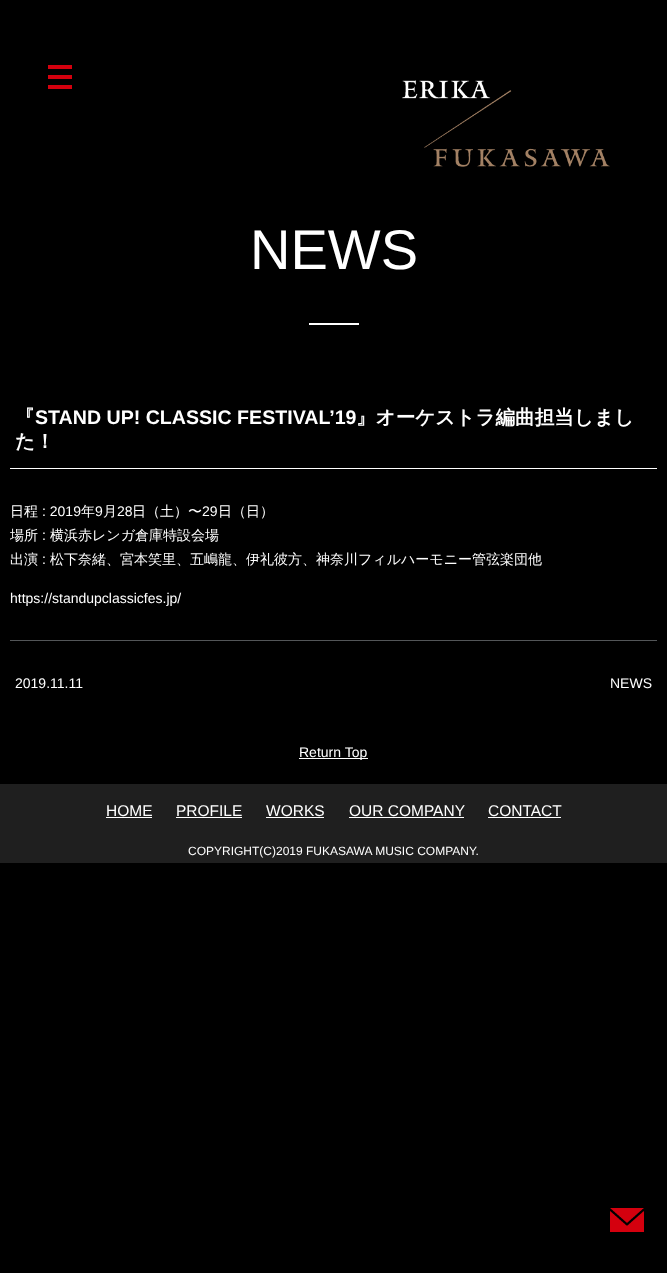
<svg xmlns="http://www.w3.org/2000/svg" width="667" height="1273">
<rect width="100%" height="100%" fill="#000"/>
<rect x="48" y="65" width="24" height="4" fill="#d4000e"/>
<rect x="48" y="75" width="24" height="4" fill="#d4000e"/>
<rect x="48" y="85" width="24" height="4" fill="#d4000e"/>
<image x="610" y="1208" width="34" height="24" href="media/1.png"/>
<image x="402" y="80" width="208" height="87" href="media/2.png"/>
<text x="250" y="269" style="font-family:Liberation Sans;font-size:56px;fill:#fff">NEWS</text>
<rect x="309" y="323" width="50" height="2" fill="#fff"/>
<rect x="10" y="468" width="647" height="1" fill="#fff"/>
<text x="15" y="424" style="font-family:WenQuanYi Zen Hei;font-size:19.6px;font-weight:bold;fill:#fff">『</text>
<text x="35" y="424" style="font-family:Liberation Sans;font-size:19.6px;font-weight:bold;fill:#fff">STAND UP! CLASSIC FESTIVAL’19</text>
<text x="356" y="424" style="font-family:WenQuanYi Zen Hei;font-size:19.6px;font-weight:bold;fill:#fff">』オーケストラ編曲担当しまし</text>
<text x="15" y="448" style="font-family:WenQuanYi Zen Hei;font-size:19.6px;font-weight:bold;fill:#fff">た！</text>
<text x="10" y="516" style="font-family:WenQuanYi Zen Hei;font-size:14px;font-weight:500;fill:#fff">日程</text>
<text x="42" y="516" style="font-family:Liberation Sans;font-size:14px;fill:#fff">: 2019</text>
<text x="81" y="516" style="font-family:WenQuanYi Zen Hei;font-size:14px;font-weight:500;fill:#fff">年</text>
<text x="95" y="516" style="font-family:Liberation Sans;font-size:14px;fill:#fff">9</text>
<text x="103" y="516" style="font-family:WenQuanYi Zen Hei;font-size:14px;font-weight:500;fill:#fff">月</text>
<text x="117" y="516" style="font-family:Liberation Sans;font-size:14px;fill:#fff">28</text>
<text x="132" y="516" style="font-family:WenQuanYi Zen Hei;font-size:14px;font-weight:500;fill:#fff">日（土）〜</text>
<text x="202" y="516" style="font-family:Liberation Sans;font-size:14px;fill:#fff">29</text>
<text x="218" y="516" style="font-family:WenQuanYi Zen Hei;font-size:14px;font-weight:500;fill:#fff">日（日）</text>
<text x="10" y="540" style="font-family:WenQuanYi Zen Hei;font-size:14px;font-weight:500;fill:#fff">場所</text>
<text x="42" y="540" style="font-family:Liberation Sans;font-size:14px;fill:#fff">:</text>
<text x="50" y="540" style="font-family:WenQuanYi Zen Hei;font-size:14px;font-weight:500;fill:#fff">横浜赤レンガ倉庫特設会場</text>
<text x="10" y="564" style="font-family:WenQuanYi Zen Hei;font-size:14px;font-weight:500;fill:#fff">出演</text>
<text x="42" y="564" style="font-family:Liberation Sans;font-size:14px;fill:#fff">:</text>
<text x="50" y="564" style="font-family:WenQuanYi Zen Hei;font-size:14px;font-weight:500;fill:#fff">松下奈緒、宮本笑里、五嶋龍、伊礼彼方、神奈川フィルハーモニー管弦楽団他</text>
<text x="10" y="603" style="font-family:Liberation Sans;font-size:14px;fill:#fff">https://standupclassicfes.jp/</text>
<rect x="10" y="640" width="647" height="1" fill="#535658"/>
<text x="15" y="688" style="font-family:Liberation Sans;font-size:14px;fill:#fff">2019.11.11</text>
<text x="610" y="688" style="font-family:Liberation Sans;font-size:14px;fill:#fff">NEWS</text>
<rect x="299" y="758" width="69" height="1" fill="#fff"/>
<text x="299" y="757" style="font-family:Liberation Sans;font-size:14px;fill:#fff">Return Top</text>
<rect y="784" width="667" height="79" fill="#1f1f1f"/>
<text x="106" y="816" style="font-family:Liberation Sans;font-size:15.5px;fill:#fff">HOME</text>
<rect x="106" y="817" width="46" height="1" fill="#fff"/>
<text x="176" y="816" style="font-family:Liberation Sans;font-size:15.5px;fill:#fff">PROFILE</text>
<rect x="176" y="817" width="66" height="1" fill="#fff"/>
<text x="266" y="816" style="font-family:Liberation Sans;font-size:15.5px;fill:#fff">WORKS</text>
<rect x="266" y="817" width="58" height="1" fill="#fff"/>
<text x="349" y="816" style="font-family:Liberation Sans;font-size:15.5px;fill:#fff">OUR COMPANY</text>
<rect x="349" y="817" width="115" height="1" fill="#fff"/>
<text x="488" y="816" style="font-family:Liberation Sans;font-size:15.5px;fill:#fff">CONTACT</text>
<rect x="488" y="817" width="73" height="1" fill="#fff"/>
<text x="188" y="855" style="font-family:Liberation Sans;font-size:12px;fill:#fff">COPYRIGHT(C)2019 FUKASAWA MUSIC COMPANY.</text>
</svg>
